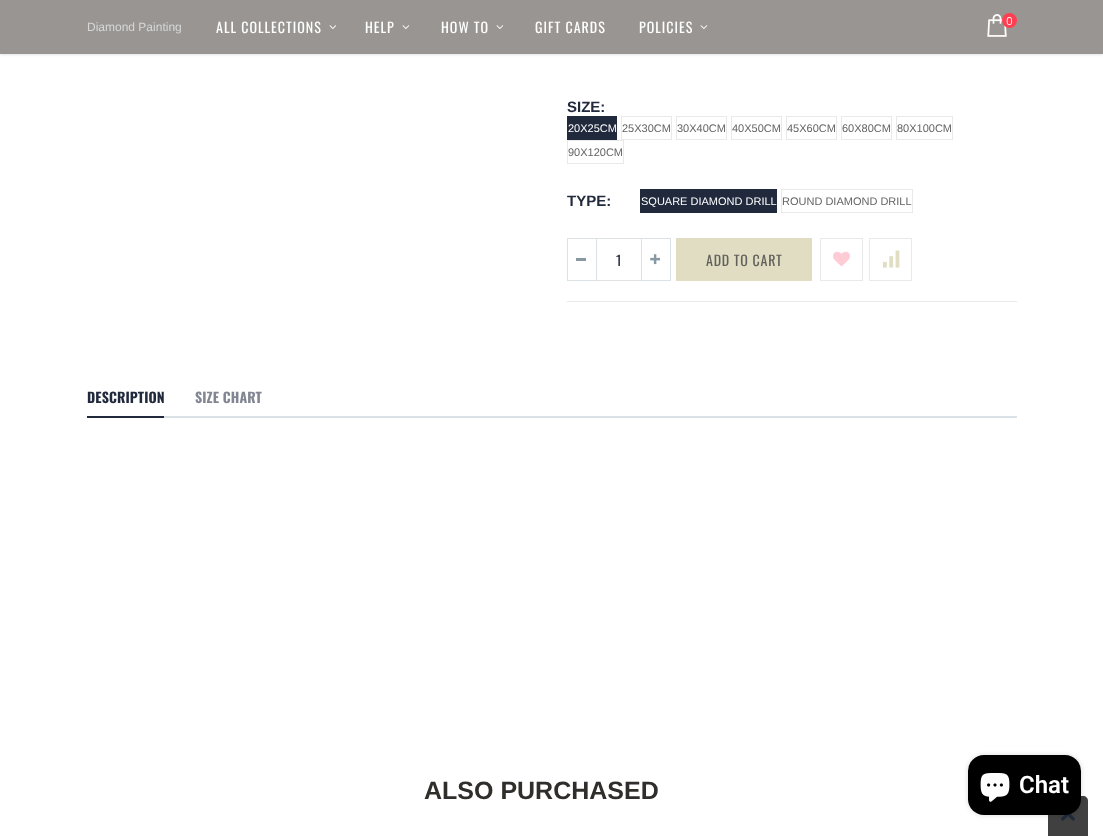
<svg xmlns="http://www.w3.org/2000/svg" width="1103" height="836">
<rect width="100%" height="100%" fill="#fff"/>
<rect y="1" width="1103" height="54" fill="#0000001a" filter="blur(1px)"/>
<rect width="1103" height="54" fill="#999592"/>
<text x="87" y="31" style="font-family:Liberation Sans;font-size:12px;fill:#d7d7d7">Diamond Painting</text>
<text x="216" y="33" style="font-family:Oswald;font-size:14px;letter-spacing:1px;fill:#fff">ALL COLLECTIONS</text>
<image x="329" y="25" width="8" height="4" href="media/1.png"/>
<text x="365" y="33" style="font-family:Oswald;font-size:14px;letter-spacing:1px;fill:#fff">HELP</text>
<image x="402" y="25" width="8" height="4" href="media/1.png"/>
<text x="441" y="33" style="font-family:Oswald;font-size:14px;letter-spacing:1px;fill:#fff">HOW TO</text>
<image x="496" y="25" width="8" height="4" href="media/1.png"/>
<text x="535" y="33" style="font-family:Oswald;font-size:14px;letter-spacing:1px;fill:#fff">GIFT CARDS</text>
<text x="639" y="33" style="font-family:Oswald;font-size:14px;letter-spacing:1px;fill:#fff">POLICIES</text>
<image x="700" y="25" width="8" height="4" href="media/1.png"/>
<image x="987" y="14" width="20" height="23" href="media/2.png"/>
<circle cx="1009.5" cy="20.5" r="7.5" fill="#ff4052"/>
<text x="1006" y="25" style="font-family:Poppins;font-size:11px;font-weight:300;fill:#fff">0</text>
<text x="567" y="112" style="font-family:Liberation Sans;font-size:15px;font-weight:bold;fill:#21293c">SIZE:</text>
<rect x="567" y="116" width="50" height="24" fill="#21293c"/>
<text x="568" y="132" style="font-family:Liberation Sans;font-size:11px;fill:#fff">20X25CM</text>
<rect x="621.5" y="116.5" width="50" height="23" fill="none" stroke="#e9e9e9"/>
<text x="622" y="132" style="font-family:Liberation Sans;font-size:11px;fill:#636363">25X30CM</text>
<rect x="676.5" y="116.5" width="50" height="23" fill="none" stroke="#e9e9e9"/>
<text x="677" y="132" style="font-family:Liberation Sans;font-size:11px;fill:#636363">30X40CM</text>
<rect x="731.5" y="116.5" width="50" height="23" fill="none" stroke="#e9e9e9"/>
<text x="732" y="132" style="font-family:Liberation Sans;font-size:11px;fill:#636363">40X50CM</text>
<rect x="786.5" y="116.5" width="50" height="23" fill="none" stroke="#e9e9e9"/>
<text x="787" y="132" style="font-family:Liberation Sans;font-size:11px;fill:#636363">45X60CM</text>
<rect x="841.5" y="116.5" width="50" height="23" fill="none" stroke="#e9e9e9"/>
<text x="842" y="132" style="font-family:Liberation Sans;font-size:11px;fill:#636363">60X80CM</text>
<rect x="896.5" y="116.5" width="56" height="23" fill="none" stroke="#e9e9e9"/>
<text x="897" y="132" style="font-family:Liberation Sans;font-size:11px;fill:#636363">80X100CM</text>
<rect x="567.5" y="140.5" width="56" height="23" fill="none" stroke="#e9e9e9"/>
<text x="568" y="156" style="font-family:Liberation Sans;font-size:11px;fill:#636363">90X120CM</text>
<text x="567" y="206" style="font-family:Liberation Sans;font-size:15px;font-weight:bold;fill:#21293c">TYPE:</text>
<rect x="640" y="189" width="137" height="24" fill="#21293c"/>
<text x="641" y="205" style="font-family:Liberation Sans;font-size:11px;fill:#fff">SQUARE DIAMOND DRILL</text>
<rect x="781.5" y="189.5" width="131" height="23" fill="none" stroke="#e9e9e9"/>
<text x="782" y="205" style="font-family:Liberation Sans;font-size:11px;fill:#636363">ROUND DIAMOND DRILL</text>
<rect x="567" y="301" width="450" height="1" fill="#ebebeb"/>
<rect x="596.5" y="238.5" width="45" height="42" fill="none" stroke="#e1e1e1"/>
<rect x="567.5" y="238.5" width="29" height="42" fill="none" stroke="#dae2e6"/>
<rect x="576" y="258" width="10" height="3" fill="#8798a2"/>
<rect x="641.5" y="238.5" width="29" height="42" fill="none" stroke="#dae2e6"/>
<image x="650" y="254" width="10" height="11" href="media/3.png"/>
<text x="616" y="266" style="font-family:Oswald;font-size:14px;fill:#21293c">1</text>
<rect x="676" y="238" width="136" height="43" fill="#e1ddc3"/>
<text x="706" y="266" style="font-family:Oswald;font-size:14px;letter-spacing:0.75px;fill:#61605a">ADD TO CART</text>
<rect x="820.5" y="238.5" width="42" height="42" fill="none" stroke="#e9e9e9"/>
<image x="833" y="251" width="17" height="16" href="media/4.png"/>
<rect x="869.5" y="238.5" width="42" height="42" fill="none" stroke="#e9e9e9"/>
<image x="883" y="250" width="17" height="18" href="media/5.png"/>
<rect x="164" y="416" width="853" height="2" fill="#dae2e6"/>
<rect x="87" y="416" width="77" height="2" fill="#21293c"/>
<text x="87" y="403" style="font-family:Oswald;font-size:14px;font-weight:bold;letter-spacing:0.1px;fill:#21293c">DESCRIPTION</text>
<text x="195" y="403" style="font-family:Oswald;font-size:14px;font-weight:bold;letter-spacing:0.1px;fill:#818692">SIZE CHART</text>
<text x="424" y="799" style="font-family:Liberation Sans;font-size:25px;font-weight:bold;fill:#302e2a">ALSO PURCHASED</text>
<path d="M1053 796h30c3 0 5 2 5 5v35h-40v-35c0-3 2-5 5-5z" fill="#404040"/>
<image x="1061" y="813" width="14" height="8" href="media/6.png"/>
<rect x="968" y="755" width="113" height="60" rx="16" fill="#00000026" filter="blur(2.5px)"/>
<rect x="968" y="755" width="113" height="60" rx="16" fill="#000"/>
<image x="980" y="773" width="30" height="29" href="media/7.png"/>
<text x="1019" y="793" style="font-family:Roboto;font-size:24px;font-weight:600;fill:#fff">Chat</text>
</svg>
